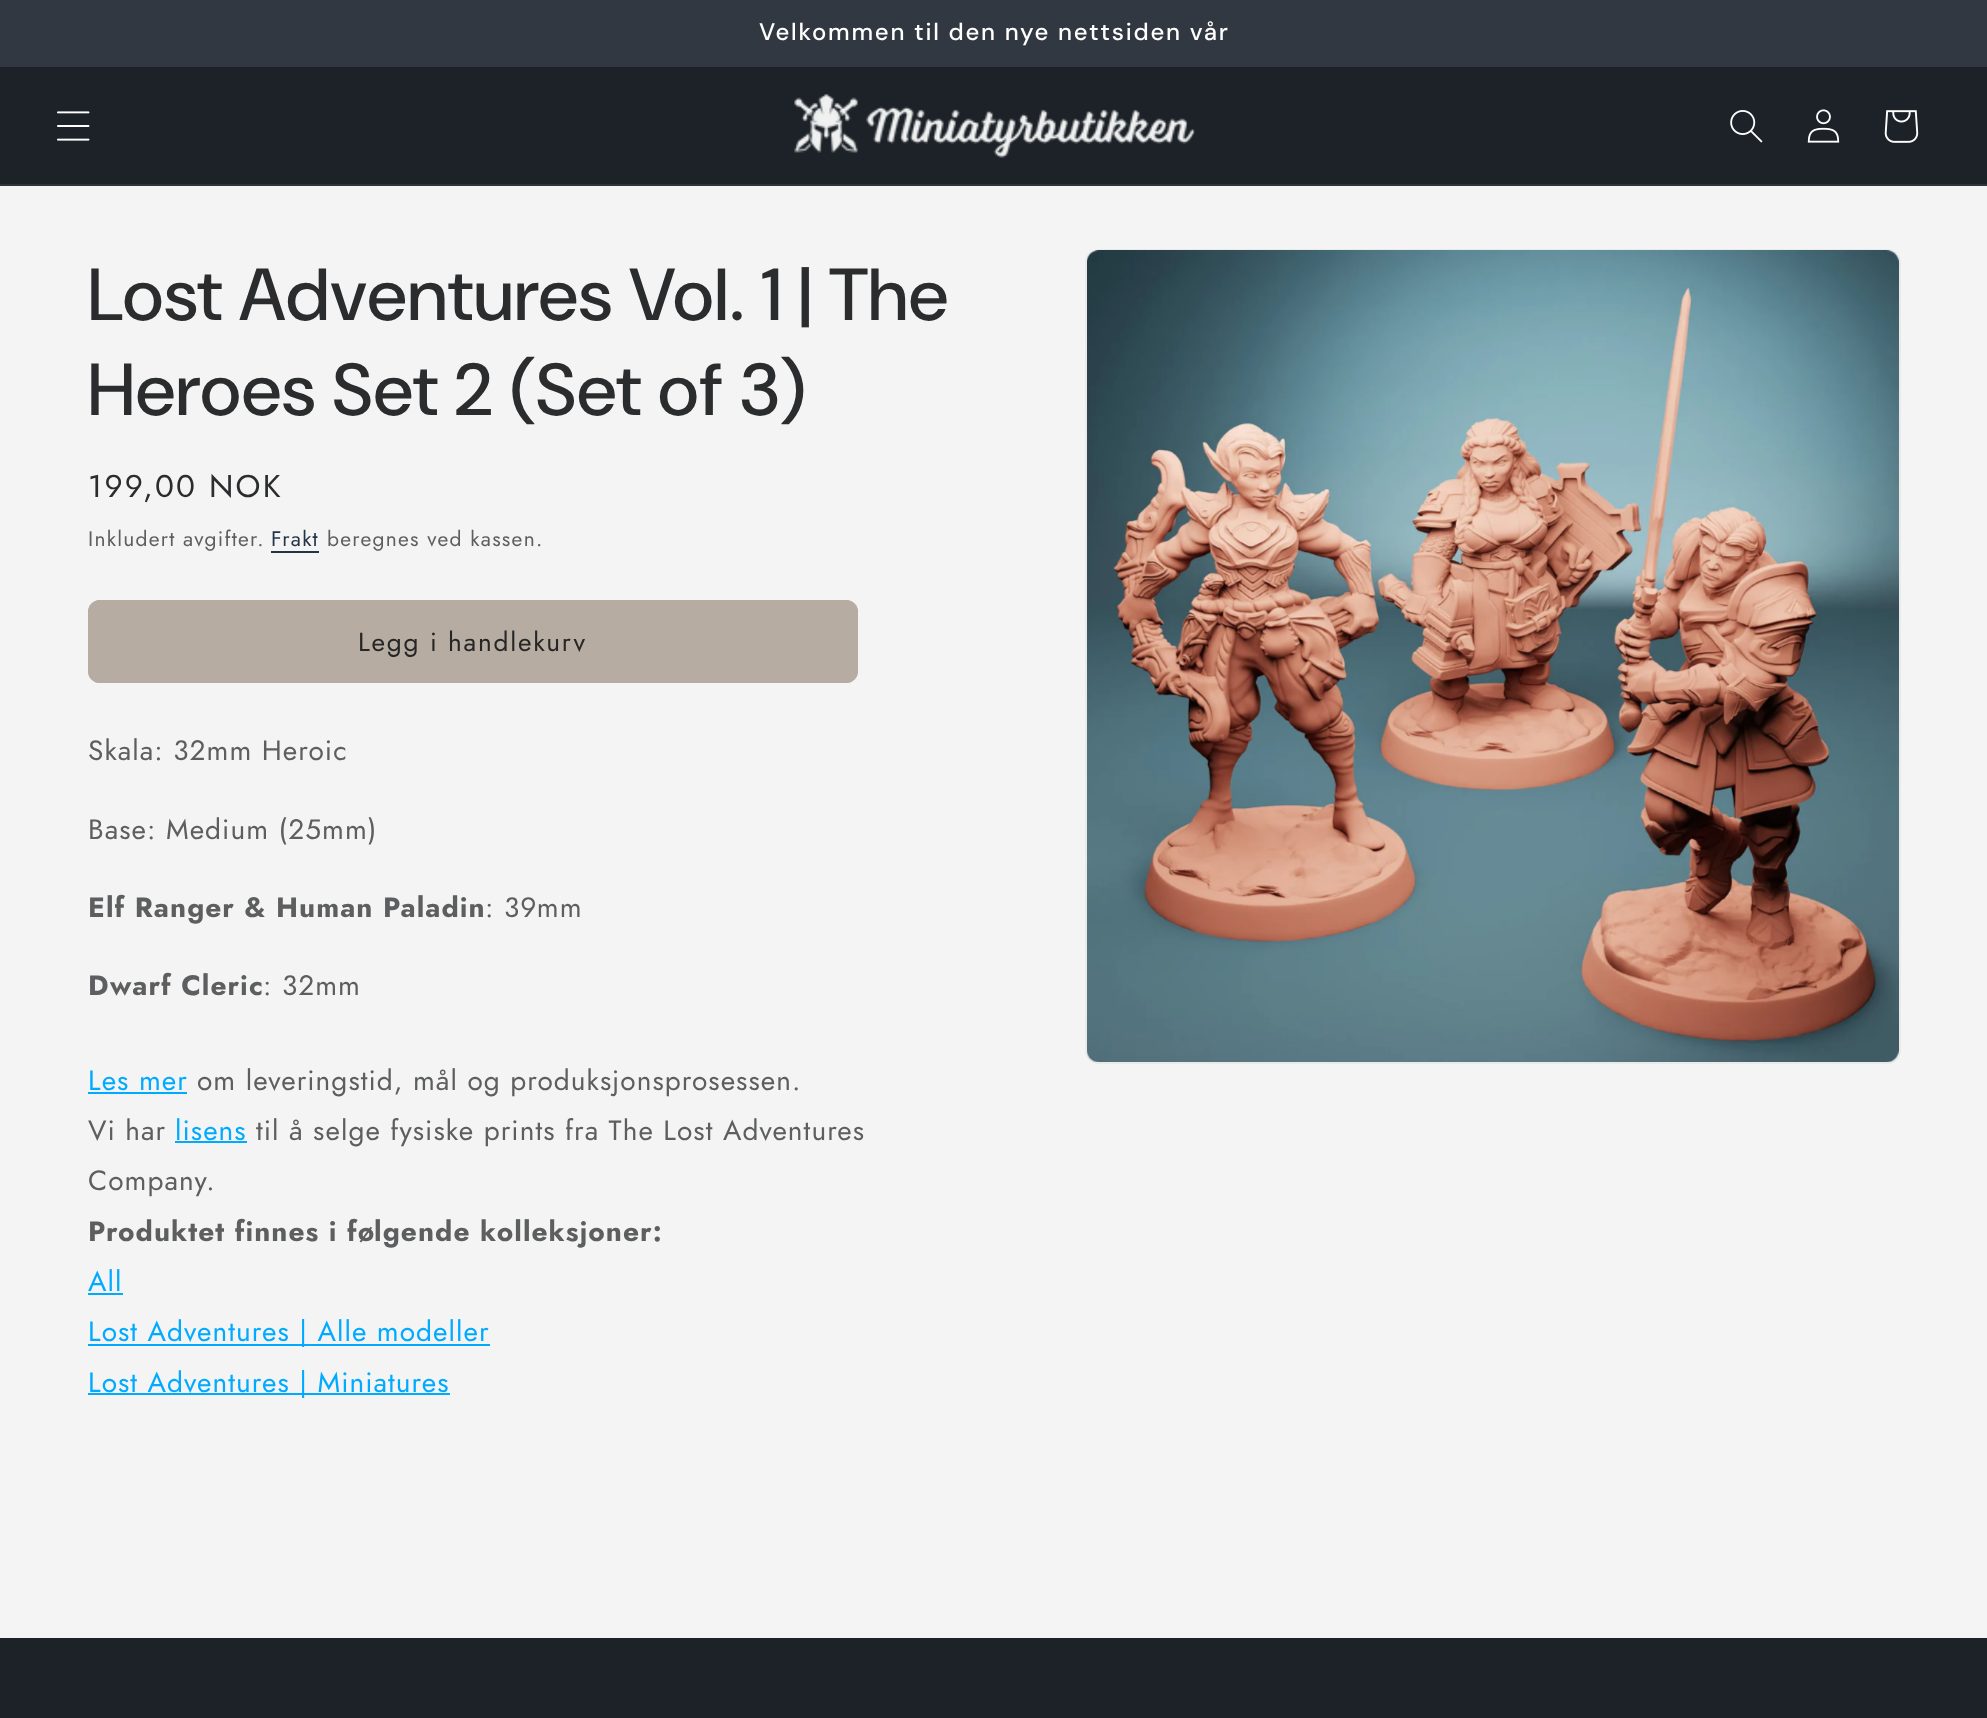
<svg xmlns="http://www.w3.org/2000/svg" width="1987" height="1718">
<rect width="100%" height="100%" fill="#f4f4f4"/>
<rect width="1987" height="67" fill="#323841"/>
<text x="759" y="40" style="font-family:'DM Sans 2';font-size:23.9px;font-weight:500;letter-spacing:1.75px;fill:#fff">Velkommen til den nye nettsiden vår</text>
<rect y="67" width="1987" height="117" fill="#1c2228"/>
<rect y="184" width="1987" height="2" fill="#2e3439"/>
<image x="57" y="111" width="33" height="30" href="media/1.png"/>
<image x="794" y="94" width="401" height="64" href="media/2.png"/>
<image x="1730" y="110" width="33" height="33" href="media/3.png"/>
<image x="1807" y="109" width="33" height="34" href="media/4.png"/>
<image x="1884" y="110" width="35" height="33" href="media/5.png"/>
<text x="88" y="320" style="font-family:DM Sans;font-size:73.5px;font-weight:500;letter-spacing:1.1px;fill:#2b2c2d">Lost Adventures Vol. 1 | The</text>
<text x="88" y="415" style="font-family:DM Sans;font-size:73.5px;font-weight:500;letter-spacing:1.1px;fill:#2b2c2d">Heroes Set 2 (Set of 3)</text>
<text x="88" y="497" style="font-family:Jost;font-size:31.5px;letter-spacing:2.25px;fill:#2b2c2d">199,00 NOK</text>
<text x="88" y="546" style="font-family:Jost;font-size:21px;letter-spacing:1.25px;fill:#5d5e5f">Inkludert avgifter.</text>
<text x="271" y="546" style="font-family:Jost;font-size:21px;letter-spacing:1.25px;fill:#253347">Frakt</text>
<rect x="271" y="551" width="48" height="2" fill="#253347"/>
<text x="327" y="546" style="font-family:Jost;font-size:21px;letter-spacing:1.25px;fill:#5d5e5f">beregnes ved kassen.</text>
<rect x="88" y="600" width="770" height="83" rx="12" fill="#b7aca2"/>
<rect x="89" y="601" width="768" height="81" rx="11" fill="none" stroke="#b7aca2" stroke-width="2"/>
<text x="358" y="651" style="font-family:Jost;font-size:26.25px;letter-spacing:1.75px;fill:#262626">Legg i handlekurv</text>
<text x="88" y="760" style="font-family:Jost;font-size:28px;letter-spacing:1.05px;fill:#5d5e5f">Skala: 32mm Heroic</text>
<text x="88" y="839" style="font-family:Jost;font-size:28px;letter-spacing:1.05px;fill:#5d5e5f">Base: Medium (25mm)</text>
<text x="88" y="917" style="font-family:Jost;font-size:28px;font-weight:bold;letter-spacing:1.05px;fill:#5d5e5f">Elf Ranger &amp; Human Paladin</text>
<text x="485" y="917" style="font-family:Jost;font-size:28px;letter-spacing:1.05px;fill:#5d5e5f">: 39mm</text>
<text x="88" y="995" style="font-family:Jost;font-size:28px;font-weight:bold;letter-spacing:1.05px;fill:#5d5e5f">Dwarf Cleric</text>
<text x="263" y="995" style="font-family:Jost;font-size:28px;letter-spacing:1.05px;fill:#5d5e5f">: 32mm</text>
<text x="88" y="1090" style="font-family:Jost;font-size:28px;letter-spacing:1.05px;fill:#0af">Les mer</text>
<rect x="88" y="1092" width="99" height="2" fill="#0af"/>
<text x="197" y="1090" style="font-family:Jost;font-size:28px;letter-spacing:1.05px;fill:#5d5e5f">om leveringstid, mål og produksjonsprosessen.</text>
<text x="88" y="1140" style="font-family:Jost;font-size:28px;letter-spacing:1.05px;fill:#5d5e5f">Vi har</text>
<text x="175" y="1140" style="font-family:Jost;font-size:28px;letter-spacing:1.05px;fill:#0af">lisens</text>
<rect x="175" y="1141" width="72" height="2" fill="#0af"/>
<text x="256" y="1140" style="font-family:Jost;font-size:28px;letter-spacing:1.05px;fill:#5d5e5f">til å selge fysiske prints fra The Lost Adventures</text>
<text x="88" y="1190" style="font-family:Jost;font-size:28px;letter-spacing:1.05px;fill:#5d5e5f">Company.</text>
<text x="88" y="1241" style="font-family:Jost;font-size:28px;font-weight:bold;letter-spacing:1.05px;fill:#5d5e5f">Produktet finnes i følgende kolleksjoner:</text>
<text x="88" y="1291" style="font-family:Jost;font-size:28px;letter-spacing:1.05px;fill:#0af">All</text>
<rect x="88" y="1293" width="35" height="2" fill="#0af"/>
<rect x="88" y="1344" width="402" height="2" fill="#0af"/>
<text x="88" y="1341" style="font-family:Jost;font-size:28px;letter-spacing:1.05px;fill:#0af">Lost Adventures | Alle modeller</text>
<rect x="88" y="1393" width="362" height="2" fill="#0af"/>
<text x="88" y="1392" style="font-family:Jost;font-size:28px;letter-spacing:1.05px;fill:#0af">Lost Adventures | Miniatures</text>
<rect x="1086" y="250" width="814" height="813" rx="13" fill="none" stroke="#eaeaea" stroke-width="2"/>
<image x="1087" y="250" width="812" height="812" href="media/6.png"/>
<rect y="1638" width="1987" height="80" fill="#1c2228"/>
</svg>
